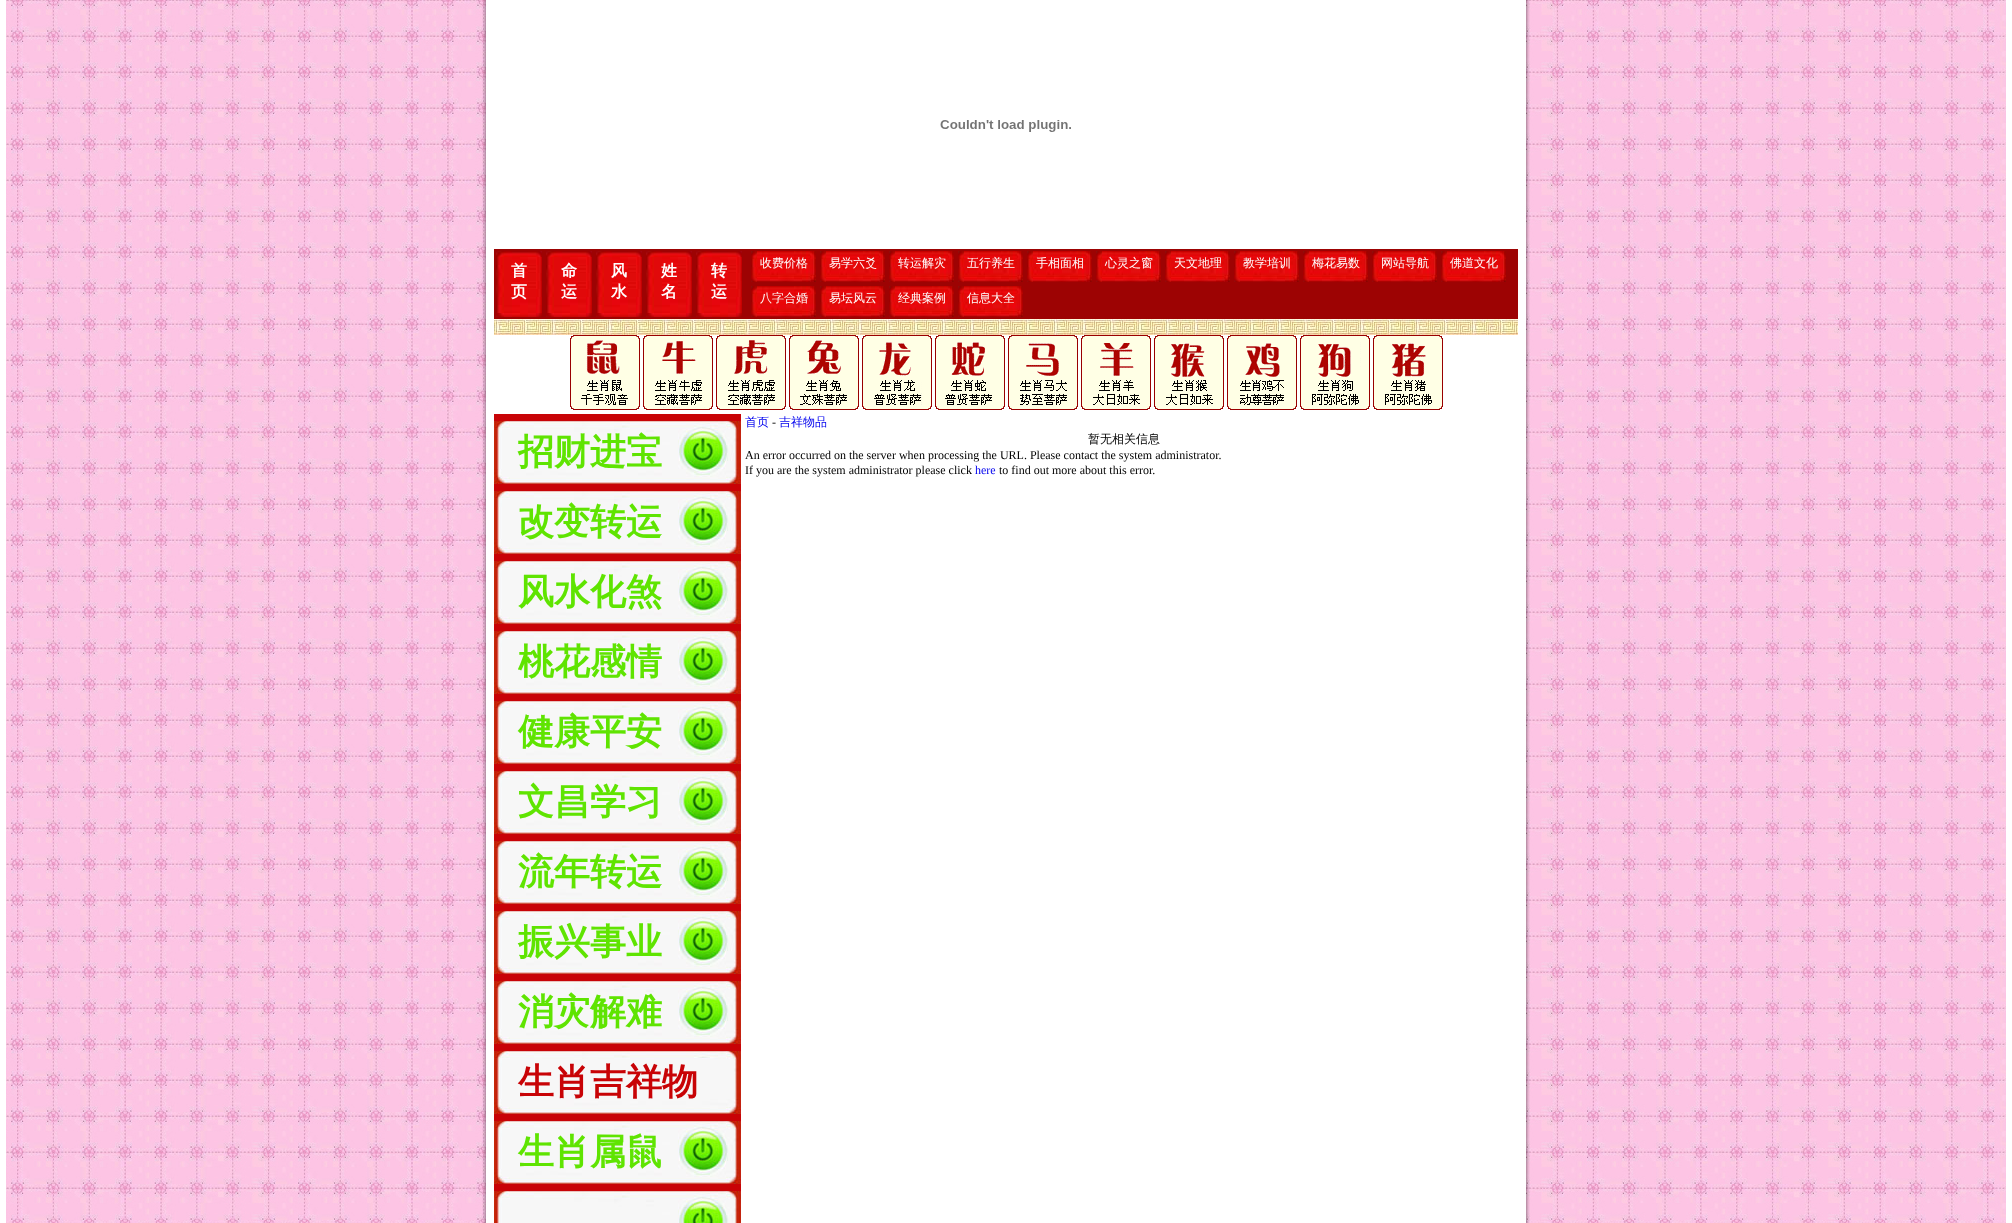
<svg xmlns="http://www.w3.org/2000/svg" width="2012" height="1223">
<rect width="100%" height="100%" fill="#fff"/>
<image x="6" y="0" width="2000" height="1223" href="media/1.png"/>
<image x="940" y="120" width="131" height="12" href="media/2.png"/>
<rect x="494" y="249" width="1024" height="70" fill="#9d0303"/>
<image x="496" y="251" width="46" height="6" href="media/3.png"/>
<image x="496" y="257" width="46" height="60" href="media/4.png"/>
<text x="511" y="276" style="font-family:WenQuanYi Zen Hei;font-size:16px;font-weight:bold;fill:#fff">首</text>
<text x="511" y="297" style="font-family:WenQuanYi Zen Hei;font-size:16px;font-weight:bold;fill:#fff">页</text>
<image x="546" y="251" width="46" height="6" href="media/3.png"/>
<image x="546" y="257" width="46" height="60" href="media/4.png"/>
<text x="561" y="276" style="font-family:WenQuanYi Zen Hei;font-size:16px;font-weight:bold;fill:#fff">命</text>
<text x="561" y="297" style="font-family:WenQuanYi Zen Hei;font-size:16px;font-weight:bold;fill:#fff">运</text>
<image x="596" y="251" width="46" height="6" href="media/3.png"/>
<image x="596" y="257" width="46" height="60" href="media/4.png"/>
<text x="611" y="276" style="font-family:WenQuanYi Zen Hei;font-size:16px;font-weight:bold;fill:#fff">风</text>
<text x="611" y="297" style="font-family:WenQuanYi Zen Hei;font-size:16px;font-weight:bold;fill:#fff">水</text>
<image x="646" y="251" width="46" height="6" href="media/3.png"/>
<image x="646" y="257" width="46" height="60" href="media/4.png"/>
<text x="661" y="276" style="font-family:WenQuanYi Zen Hei;font-size:16px;font-weight:bold;fill:#fff">姓</text>
<text x="661" y="297" style="font-family:WenQuanYi Zen Hei;font-size:16px;font-weight:bold;fill:#fff">名</text>
<image x="696" y="251" width="46" height="6" href="media/3.png"/>
<image x="696" y="257" width="46" height="60" href="media/4.png"/>
<text x="711" y="276" style="font-family:WenQuanYi Zen Hei;font-size:16px;font-weight:bold;fill:#fff">转</text>
<text x="711" y="297" style="font-family:WenQuanYi Zen Hei;font-size:16px;font-weight:bold;fill:#fff">运</text>
<image x="751" y="251" width="6" height="31" href="media/5.png"/>
<image x="757" y="251" width="59" height="31" href="media/6.png"/>
<text x="760" y="267" style="font-family:WenQuanYi Zen Hei;font-size:12px;font-weight:500;fill:#fff">收费价格</text>
<image x="820" y="251" width="6" height="31" href="media/5.png"/>
<image x="826" y="251" width="59" height="31" href="media/6.png"/>
<text x="829" y="267" style="font-family:WenQuanYi Zen Hei;font-size:12px;font-weight:500;fill:#fff">易学六爻</text>
<image x="889" y="251" width="6" height="31" href="media/5.png"/>
<image x="895" y="251" width="59" height="31" href="media/6.png"/>
<text x="898" y="267" style="font-family:WenQuanYi Zen Hei;font-size:12px;font-weight:500;fill:#fff">转运解灾</text>
<image x="958" y="251" width="6" height="31" href="media/5.png"/>
<image x="964" y="251" width="59" height="31" href="media/6.png"/>
<text x="967" y="267" style="font-family:WenQuanYi Zen Hei;font-size:12px;font-weight:500;fill:#fff">五行养生</text>
<image x="1027" y="251" width="6" height="31" href="media/5.png"/>
<image x="1033" y="251" width="59" height="31" href="media/6.png"/>
<text x="1036" y="267" style="font-family:WenQuanYi Zen Hei;font-size:12px;font-weight:500;fill:#fff">手相面相</text>
<image x="1096" y="251" width="6" height="31" href="media/5.png"/>
<image x="1102" y="251" width="59" height="31" href="media/6.png"/>
<text x="1105" y="267" style="font-family:WenQuanYi Zen Hei;font-size:12px;font-weight:500;fill:#fff">心灵之窗</text>
<image x="1165" y="251" width="6" height="31" href="media/5.png"/>
<image x="1171" y="251" width="59" height="31" href="media/6.png"/>
<text x="1174" y="267" style="font-family:WenQuanYi Zen Hei;font-size:12px;font-weight:500;fill:#fff">天文地理</text>
<image x="1234" y="251" width="6" height="31" href="media/5.png"/>
<image x="1240" y="251" width="59" height="31" href="media/6.png"/>
<text x="1243" y="267" style="font-family:WenQuanYi Zen Hei;font-size:12px;font-weight:500;fill:#fff">教学培训</text>
<image x="1303" y="251" width="6" height="31" href="media/5.png"/>
<image x="1309" y="251" width="59" height="31" href="media/6.png"/>
<text x="1312" y="267" style="font-family:WenQuanYi Zen Hei;font-size:12px;font-weight:500;fill:#fff">梅花易数</text>
<image x="1372" y="251" width="6" height="31" href="media/5.png"/>
<image x="1378" y="251" width="59" height="31" href="media/6.png"/>
<text x="1381" y="267" style="font-family:WenQuanYi Zen Hei;font-size:12px;font-weight:500;fill:#fff">网站导航</text>
<image x="1441" y="251" width="6" height="31" href="media/5.png"/>
<image x="1447" y="251" width="59" height="31" href="media/6.png"/>
<text x="1450" y="267" style="font-family:WenQuanYi Zen Hei;font-size:12px;font-weight:500;fill:#fff">佛道文化</text>
<image x="751" y="286" width="6" height="31" href="media/5.png"/>
<image x="757" y="286" width="59" height="31" href="media/6.png"/>
<text x="760" y="302" style="font-family:WenQuanYi Zen Hei;font-size:12px;font-weight:500;fill:#fff">八字合婚</text>
<image x="820" y="286" width="6" height="31" href="media/5.png"/>
<image x="826" y="286" width="59" height="31" href="media/6.png"/>
<text x="829" y="302" style="font-family:WenQuanYi Zen Hei;font-size:12px;font-weight:500;fill:#fff">易坛风云</text>
<image x="889" y="286" width="6" height="31" href="media/5.png"/>
<image x="895" y="286" width="59" height="31" href="media/6.png"/>
<text x="898" y="302" style="font-family:WenQuanYi Zen Hei;font-size:12px;font-weight:500;fill:#fff">经典案例</text>
<image x="958" y="286" width="6" height="31" href="media/5.png"/>
<image x="964" y="286" width="59" height="31" href="media/6.png"/>
<text x="967" y="302" style="font-family:WenQuanYi Zen Hei;font-size:12px;font-weight:500;fill:#fff">信息大全</text>
<image x="494" y="319" width="1024" height="16" href="media/7.png"/>
<image x="570" y="335" width="70" height="75" href="media/8.png"/>
<image x="643" y="335" width="70" height="75" href="media/9.png"/>
<image x="716" y="335" width="70" height="75" href="media/10.png"/>
<image x="789" y="335" width="70" height="75" href="media/11.png"/>
<image x="862" y="335" width="70" height="75" href="media/12.png"/>
<image x="935" y="335" width="70" height="75" href="media/13.png"/>
<image x="1008" y="335" width="70" height="75" href="media/14.png"/>
<image x="1081" y="335" width="70" height="75" href="media/15.png"/>
<image x="1154" y="335" width="70" height="75" href="media/16.png"/>
<image x="1227" y="335" width="70" height="75" href="media/17.png"/>
<image x="1300" y="335" width="70" height="75" href="media/18.png"/>
<image x="1373" y="335" width="70" height="75" href="media/19.png"/>
<rect x="494" y="414" width="247" height="777" fill="#c80306"/>
<image x="494" y="421" width="247" height="63" href="media/20.png"/>
<text x="518" y="464" style="font-family:WenQuanYi Zen Hei;font-size:36px;font-weight:bold;fill:#5fe401">招财进宝</text>
<image x="494" y="491" width="247" height="63" href="media/20.png"/>
<text x="518" y="534" style="font-family:WenQuanYi Zen Hei;font-size:36px;font-weight:bold;fill:#5fe401">改变转运</text>
<image x="494" y="561" width="247" height="63" href="media/20.png"/>
<text x="518" y="604" style="font-family:WenQuanYi Zen Hei;font-size:36px;font-weight:bold;fill:#5fe401">风水化煞</text>
<image x="494" y="631" width="247" height="63" href="media/20.png"/>
<text x="518" y="674" style="font-family:WenQuanYi Zen Hei;font-size:36px;font-weight:bold;fill:#5fe401">桃花感情</text>
<image x="494" y="701" width="247" height="63" href="media/20.png"/>
<text x="518" y="744" style="font-family:WenQuanYi Zen Hei;font-size:36px;font-weight:bold;fill:#5fe401">健康平安</text>
<image x="494" y="771" width="247" height="63" href="media/20.png"/>
<text x="518" y="814" style="font-family:WenQuanYi Zen Hei;font-size:36px;font-weight:bold;fill:#5fe401">文昌学习</text>
<image x="494" y="841" width="247" height="63" href="media/20.png"/>
<text x="518" y="884" style="font-family:WenQuanYi Zen Hei;font-size:36px;font-weight:bold;fill:#5fe401">流年转运</text>
<image x="494" y="911" width="247" height="63" href="media/20.png"/>
<text x="518" y="954" style="font-family:WenQuanYi Zen Hei;font-size:36px;font-weight:bold;fill:#5fe401">振兴事业</text>
<image x="494" y="981" width="247" height="63" href="media/20.png"/>
<text x="518" y="1024" style="font-family:WenQuanYi Zen Hei;font-size:36px;font-weight:bold;fill:#5fe401">消灾解难</text>
<image x="494" y="1051" width="247" height="63" href="media/21.png"/>
<text x="518" y="1094" style="font-family:WenQuanYi Zen Hei;font-size:36px;font-weight:bold;fill:#c80306">生肖吉祥物</text>
<image x="494" y="1121" width="247" height="63" href="media/20.png"/>
<text x="518" y="1164" style="font-family:WenQuanYi Zen Hei;font-size:36px;font-weight:bold;fill:#5fe401">生肖属鼠</text>
<image x="494" y="1191" width="247" height="32" href="media/22.png"/>
<text x="745" y="426" style="font-family:WenQuanYi Zen Hei;font-size:12px;font-weight:500;fill:#00e">首页</text>
<text x="772" y="426" style="font-family:Liberation Serif;font-size:12px;fill:#000">-</text>
<text x="779" y="426" style="font-family:WenQuanYi Zen Hei;font-size:12px;font-weight:500;fill:#00e">吉祥物品</text>
<text x="1088" y="443" style="font-family:WenQuanYi Zen Hei;font-size:12px;font-weight:500;fill:#000">暂无相关信息</text>
<text x="745" y="459" style="font-family:Liberation Serif;font-size:12px;fill:#000">An error occurred on the server when processing the URL. Please contact the system administrator.</text>
<text x="745" y="474" style="font-family:Liberation Serif;font-size:12px;fill:#000">If you are the system administrator please click</text>
<text x="975" y="474" style="font-family:Liberation Serif;font-size:12px;fill:#00e">here</text>
<text x="999" y="474" style="font-family:Liberation Serif;font-size:12px;fill:#000">to find out more about this error.</text>
</svg>
